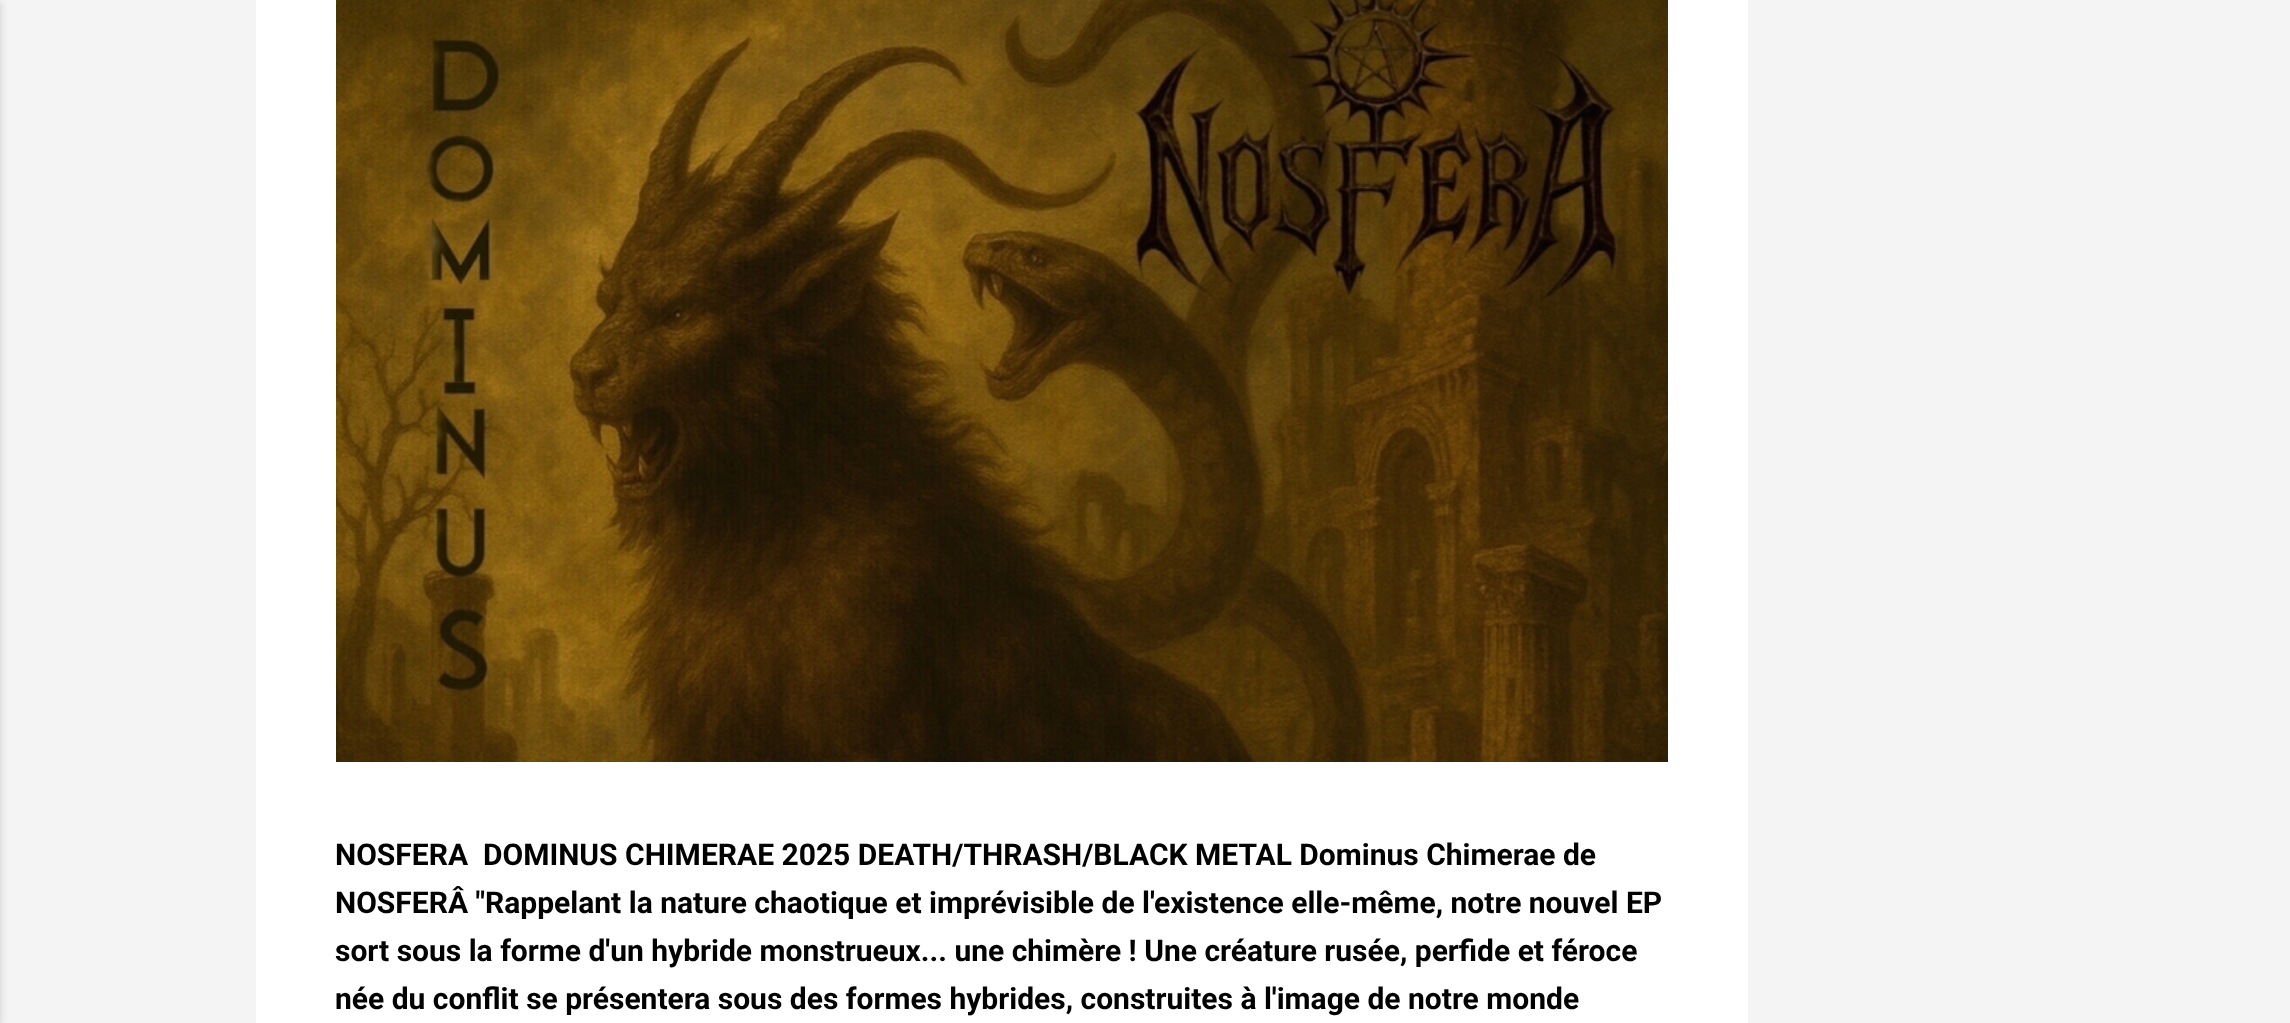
<svg xmlns="http://www.w3.org/2000/svg" width="2290" height="1023">
<rect width="100%" height="100%" fill="#f4f4f4"/>
<rect x="-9" y="2" width="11" height="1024" fill="#0000001a" filter="blur(3px)"/>
<rect x="256" width="1492" height="1023" fill="#fff"/>
<image x="336" y="0" width="1332" height="762" href="media/1.png"/>
<text x="335" y="865" style="font-family:Roboto;font-size:30px;font-weight:bold;fill:#000" xml:space="preserve">NOSFERA  DOMINUS CHIMERAE 2025 DEATH/THRASH/BLACK METAL Dominus Chimerae de</text>
<text x="335" y="913" style="font-family:Roboto;font-size:30px;font-weight:bold;fill:#000">NOSFERÂ "Rappelant la nature chaotique et imprévisible de l'existence elle-même, notre nouvel EP</text>
<text x="335" y="961" style="font-family:Roboto;font-size:30px;font-weight:bold;fill:#000">sort sous la forme d'un hybride monstrueux... une chimère ! Une créature rusée, perfide et féroce</text>
<text x="335" y="1009" style="font-family:Roboto;font-size:30px;font-weight:bold;fill:#000">née du conflit se présentera sous des formes hybrides, construites à l'image de notre monde</text>
</svg>
